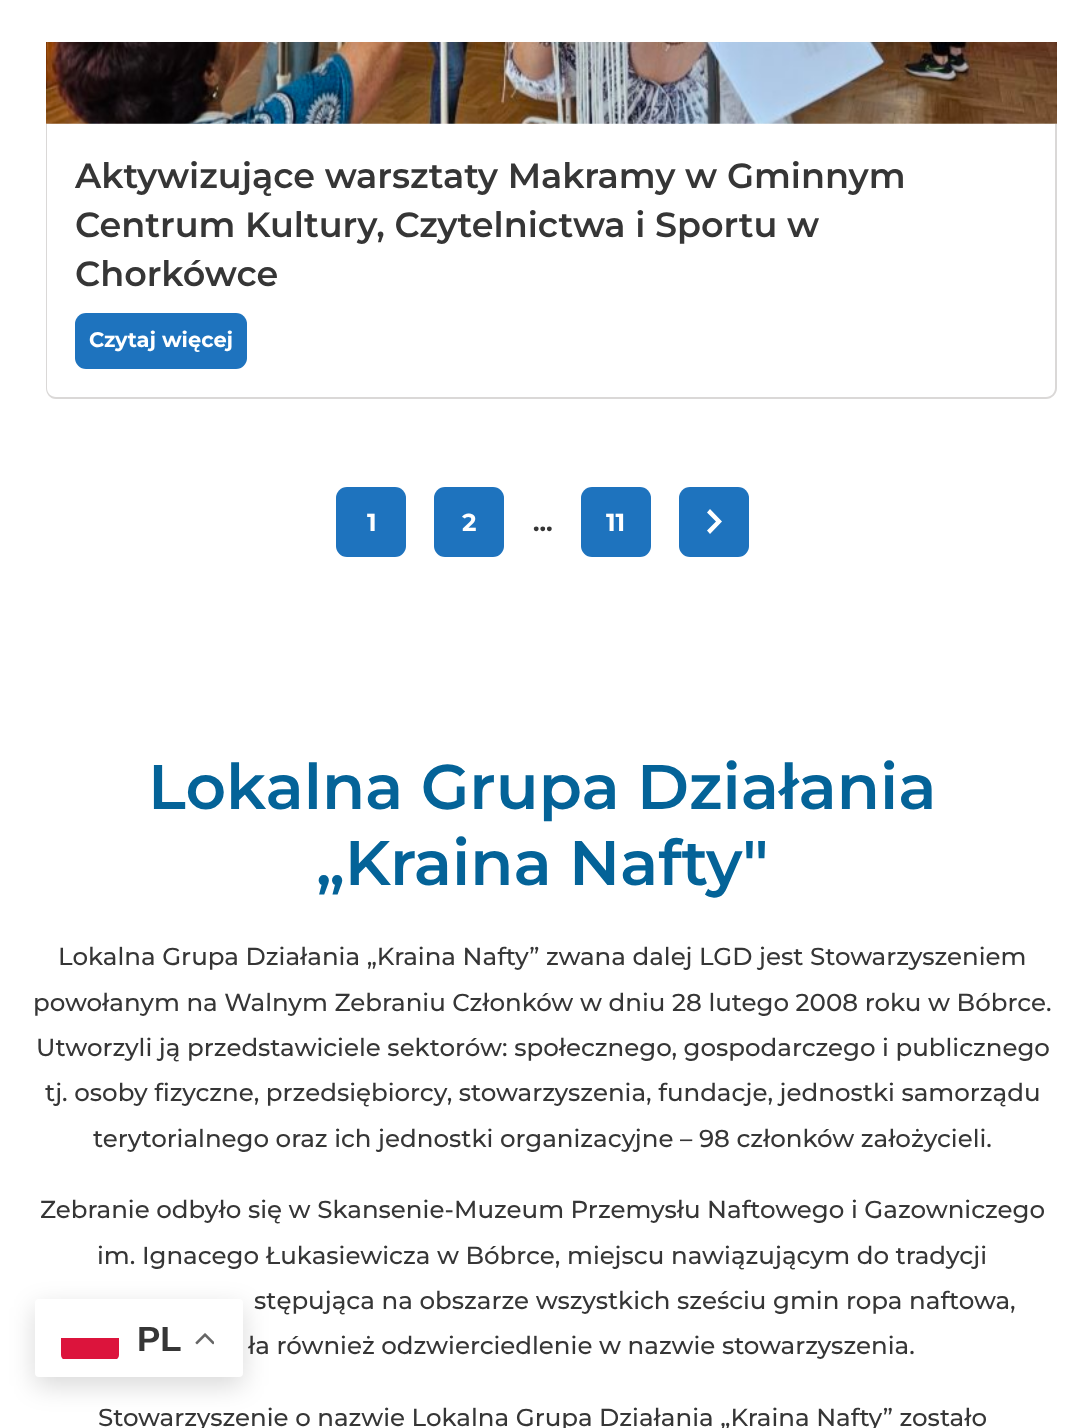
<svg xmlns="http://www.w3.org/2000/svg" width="1085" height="1428">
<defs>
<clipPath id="clip1"><rect x="61" y="1316" width="58" height="44" rx="5"/></clipPath>
</defs>
<rect width="100%" height="100%" fill="#fff"/>
<image x="46" y="42" width="1011" height="82" href="media/1.png"/>
<path d="M46 124h1011v264c0 6-5 11-11 11h-990c-6 0-10-5-10-11zm1 0h1008v264c0 5-4 9-9 9h-990c-5 0-9-4-9-9z" fill="#dad8d7" fill-rule="evenodd"/>
<text x="75" y="188" style="font-family:Montserrat;font-size:35px;font-weight:600;fill:#363636">Aktywizujące warsztaty Makramy w Gminnym</text>
<text x="75" y="237" style="font-family:Montserrat;font-size:35px;font-weight:600;fill:#363636">Centrum Kultury, Czytelnictwa i Sportu w</text>
<text x="75" y="286" style="font-family:Montserrat;font-size:35px;font-weight:600;fill:#363636">Chorkówce</text>
<rect x="75" y="313" width="172" height="56" rx="11" fill="#1e73be"/>
<text x="89" y="347" style="font-family:Montserrat;font-size:21px;font-weight:bold;fill:#fff">Czytaj więcej</text>
<rect x="336" y="487" width="70" height="70" rx="11" fill="#1e73be"/>
<text x="367" y="531" style="font-family:Montserrat;font-size:24.5px;font-weight:bold;fill:#fff">1</text>
<rect x="434" y="487" width="70" height="70" rx="11" fill="#1e73be"/>
<text x="462" y="531" style="font-family:Montserrat;font-size:24.5px;font-weight:bold;fill:#fff">2</text>
<text x="533" y="531" style="font-family:Montserrat;font-size:24.5px;font-weight:bold;fill:#363636">…</text>
<rect x="581" y="487" width="70" height="70" rx="11" fill="#1e73be"/>
<text x="606" y="531" style="font-family:Montserrat;font-size:24.5px;font-weight:bold;fill:#fff">11</text>
<rect x="679" y="487" width="70" height="70" rx="11" fill="#1e73be"/>
<path d="M707 512.5l3-3.5l12 12.5l-12 12.5l-3-3.5l9-9z" fill="#fff"/>
<text x="148" y="809" style="font-family:Montserrat;font-size:63px;font-weight:600;fill:#046398">Lokalna Grupa Działania</text>
<text x="316" y="885" style="font-family:Montserrat;font-size:63px;font-weight:600;fill:#046398">„Kraina Nafty"</text>
<text x="58" y="965" style="font-family:Montserrat;font-size:24.5px;font-weight:500;fill:#363636">Lokalna Grupa Działania „Kraina Nafty” zwana dalej LGD jest Stowarzyszeniem</text>
<text x="33" y="1011" style="font-family:Montserrat;font-size:24.5px;font-weight:500;fill:#363636">powołanym na Walnym Zebraniu Członków w dniu 28 lutego 2008 roku w Bóbrce.</text>
<text x="36" y="1056" style="font-family:Montserrat;font-size:24.5px;font-weight:500;fill:#363636">Utworzyli ją przedstawiciele sektorów: społecznego, gospodarczego i publicznego</text>
<text x="45" y="1101" style="font-family:Montserrat;font-size:24.5px;font-weight:500;fill:#363636">tj. osoby fizyczne, przedsiębiorcy, stowarzyszenia, fundacje, jednostki samorządu</text>
<text x="93" y="1147" style="font-family:Montserrat;font-size:24.5px;font-weight:500;fill:#363636">terytorialnego oraz ich jednostki organizacyjne – 98 członków założycieli.</text>
<text x="40" y="1218" style="font-family:Montserrat;font-size:24.5px;font-weight:500;fill:#363636">Zebranie odbyło się w Skansenie-Muzeum Przemysłu Naftowego i Gazowniczego</text>
<text x="97" y="1264" style="font-family:Montserrat;font-size:24.5px;font-weight:500;fill:#363636">im. Ignacego Łukasiewicza w Bóbrce, miejscu nawiązującym do tradycji</text>
<text x="254" y="1309" style="font-family:Montserrat;font-size:24.5px;font-weight:500;fill:#363636">stępująca na obszarze wszystkich sześciu gmin ropa naftowa,</text>
<text x="248" y="1354" style="font-family:Montserrat;font-size:24.5px;font-weight:500;fill:#363636">ła również odzwierciedlenie w nazwie stowarzyszenia.</text>
<text x="98" y="1426" style="font-family:Montserrat;font-size:24.5px;font-weight:500;fill:#363636">Stowarzyszenie o nazwie Lokalna Grupa Działania „Kraina Nafty” zostało</text>
<rect x="35" y="1307" width="208" height="79" rx="4" fill="#00000026" filter="blur(13px)"/>
<rect x="35" y="1299" width="208" height="78" rx="4" fill="#fff"/>
<g clip-path="url(#clip1)">
<rect x="61" y="1338" width="58" height="21" fill="#dc143c"/>
</g>
<text x="137" y="1351" style="font-family:Liberation Sans;font-size:35px;font-weight:bold;fill:#363636">PL</text>
<image x="195" y="1333" width="19" height="12" href="media/2.png"/>
</svg>
